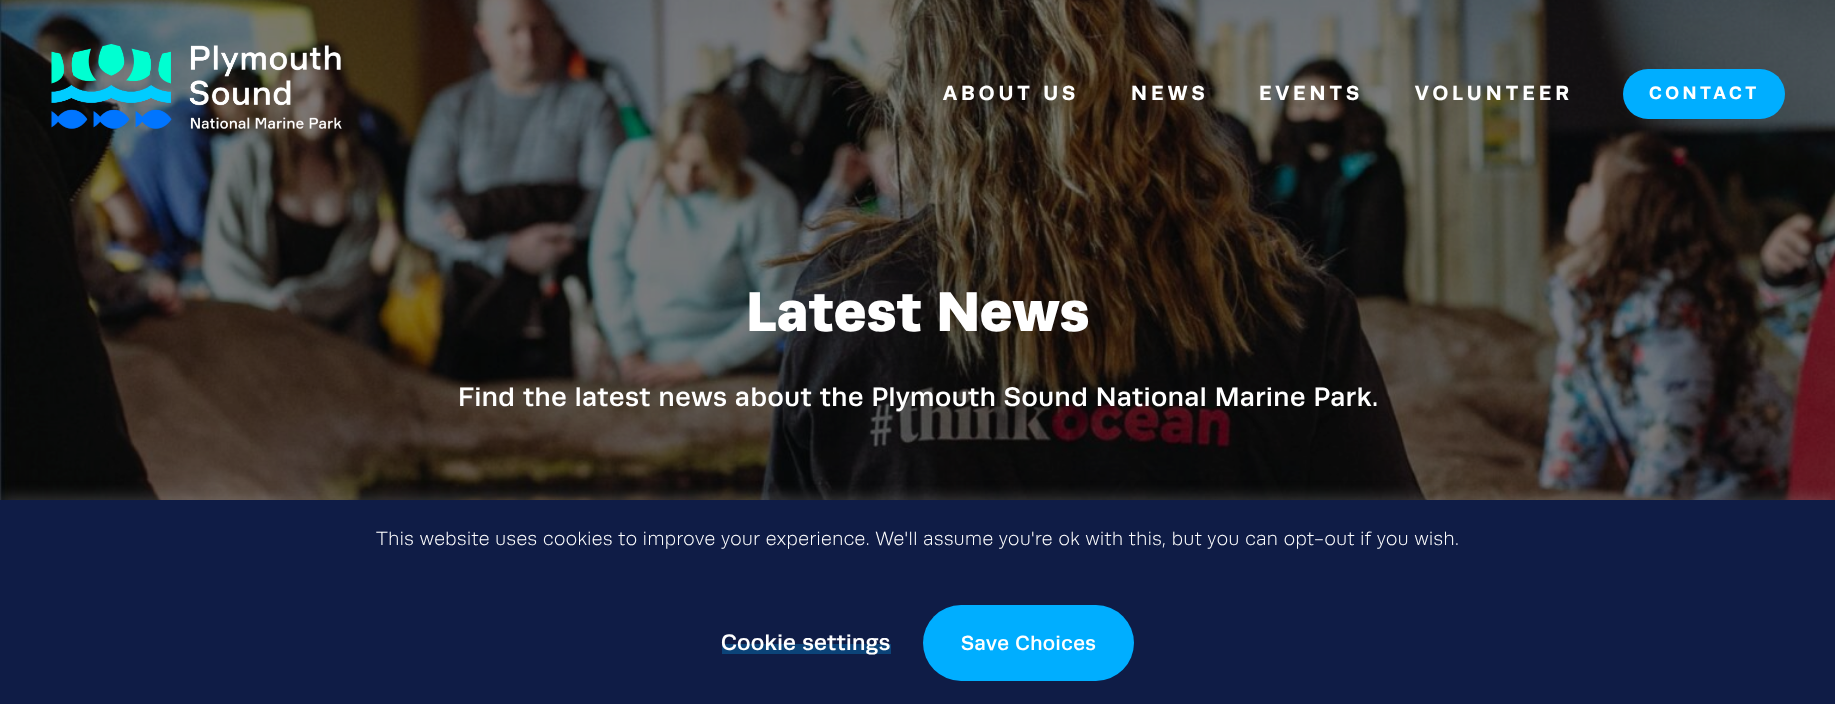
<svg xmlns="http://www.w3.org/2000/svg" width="1835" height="704">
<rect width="100%" height="100%" fill="#fff"/>
<image x="0" y="0" width="1835" height="500" href="media/2.png"/>
<image x="51" y="43" width="291" height="86" href="media/1.png"/>
<text x="943" y="100" style="font-family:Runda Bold;font-size:20.5px;font-weight:bold;letter-spacing:4px;fill:#fff">ABOUT US</text>
<text x="1131" y="100" style="font-family:Runda Bold;font-size:20.5px;font-weight:bold;letter-spacing:4px;fill:#fff">NEWS</text>
<text x="1259" y="100" style="font-family:Runda Bold;font-size:20.5px;font-weight:bold;letter-spacing:4px;fill:#fff">EVENTS</text>
<text x="1415" y="100" style="font-family:Runda Bold;font-size:20.5px;font-weight:bold;letter-spacing:4px;fill:#fff">VOLUNTEER</text>
<rect x="1623" y="69" width="162" height="50" rx="25" fill="#00aeff"/>
<text x="1649" y="99" style="font-family:Runda Bold;font-size:18px;font-weight:bold;letter-spacing:3.5px;fill:#fff">CONTACT</text>
<text x="746" y="331" style="font-family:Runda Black;font-size:56px;font-weight:900;fill:#fff">Latest News</text>
<text x="458" y="406" style="font-family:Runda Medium;font-size:27px;font-weight:500;letter-spacing:0.55px;fill:#fff">Find the latest news about the Plymouth Sound National Marine Park.</text>
<rect y="498" width="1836" height="206" fill="#acabab4d" filter="blur(7.5px)"/>
<rect y="500" width="1835" height="204" fill="#0f1c46"/>
<text x="376" y="545" style="font-family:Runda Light;font-size:19.12px;font-weight:300;letter-spacing:0.48px;fill:#fff">This website uses cookies to improve your experience. We'll assume you're ok with this, but you can opt-out if you wish.</text>
<rect x="722" y="644" width="169" height="10" fill="#0b4378"/>
<text x="721" y="650" style="font-family:Runda Medium;font-size:22.5px;font-weight:500;letter-spacing:0.25px;fill:#fff">Cookie settings</text>
<rect x="923" y="605" width="211" height="76" rx="38" fill="#00aeff"/>
<text x="961" y="650" style="font-family:Runda Medium;font-size:20.5px;font-weight:500;letter-spacing:0.48px;fill:#fff">Save Choices</text>
</svg>
